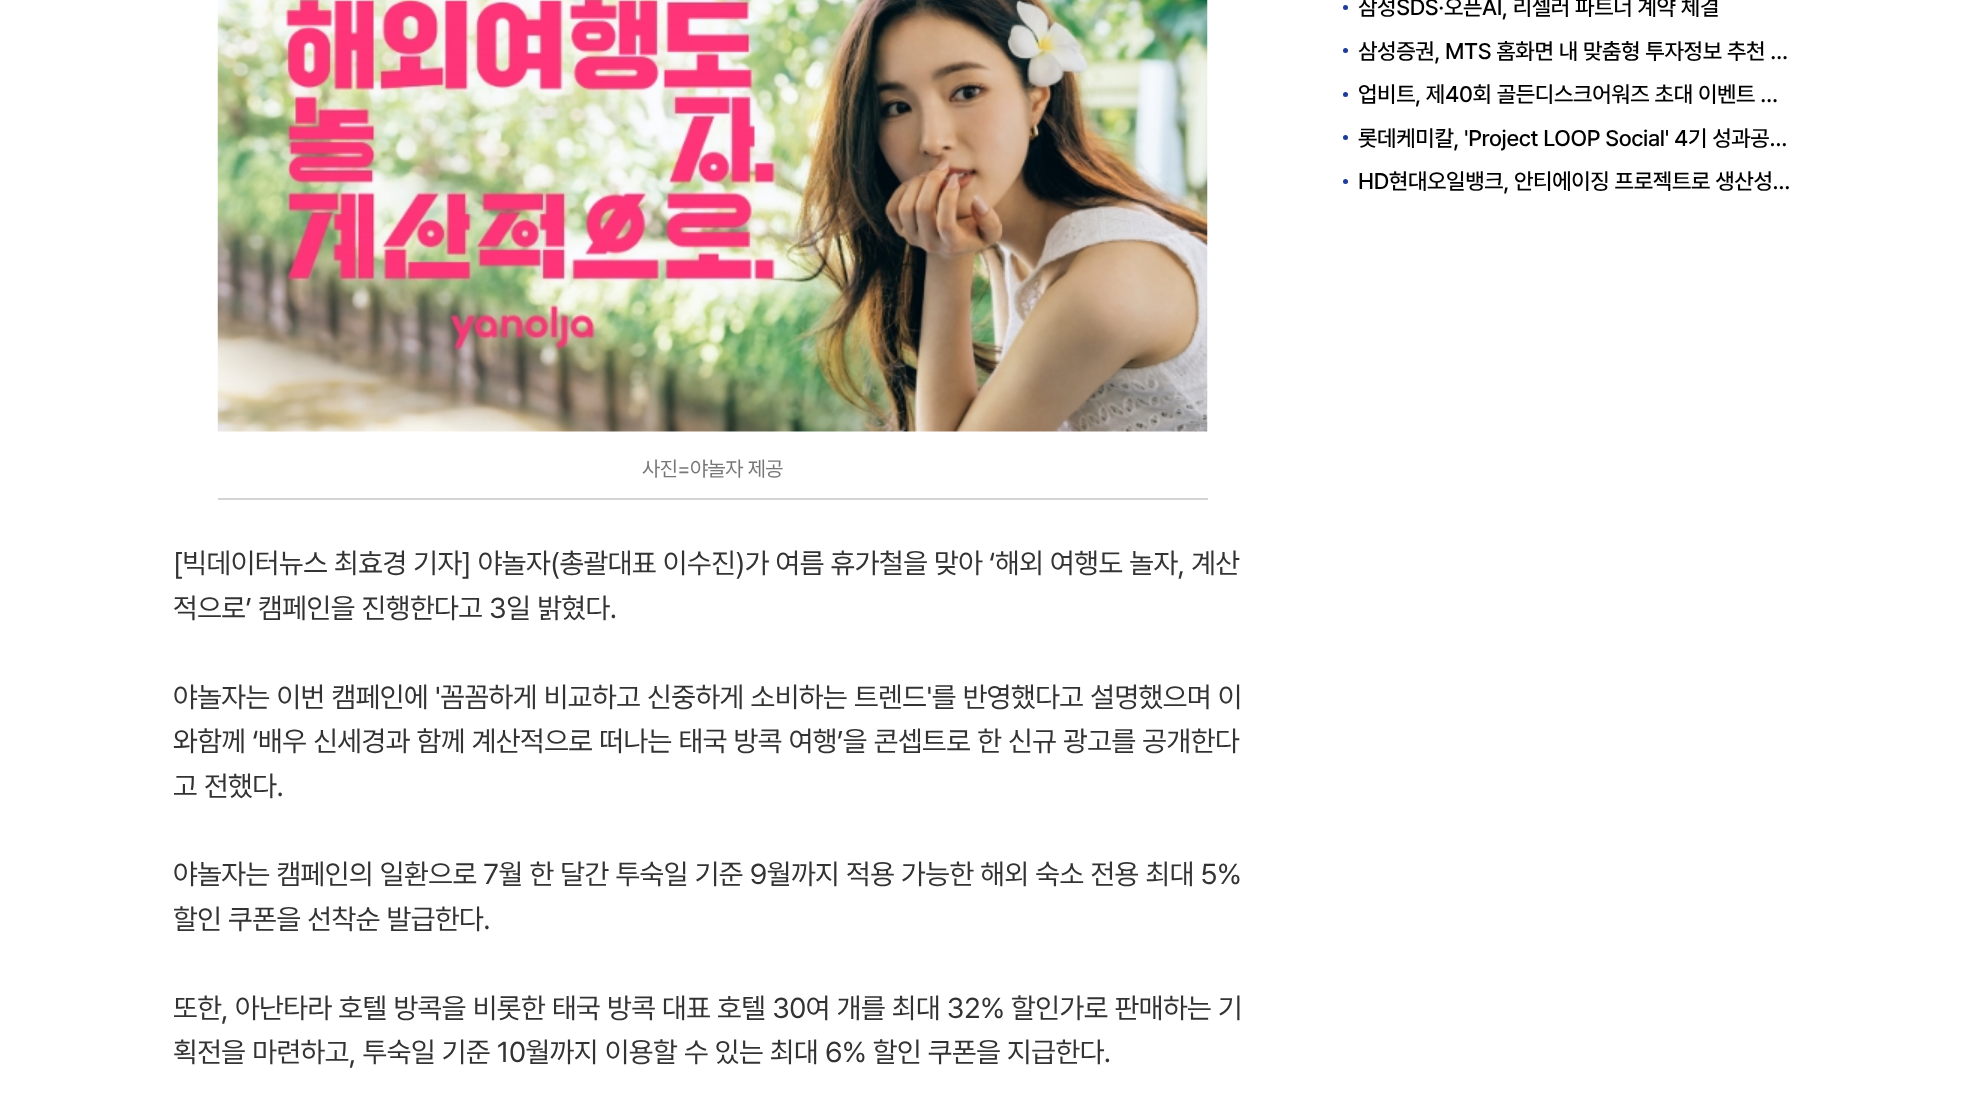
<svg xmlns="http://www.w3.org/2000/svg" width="1964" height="1119">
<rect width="100%" height="100%" fill="#fff"/>
<circle cx="1345.5" cy="7.5" r="2.5" fill="#1e3b9a"/>
<text x="1358" y="15" style="font-family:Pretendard;font-size:22.5px;font-weight:500;letter-spacing:-0.35px;fill:#000">삼성SDS·오픈AI, 리셀러 파트너 계약 체결</text>
<circle cx="1345.5" cy="50.5" r="2.5" fill="#1e3b9a"/>
<text x="1358" y="59" style="font-family:Pretendard;font-size:22.5px;font-weight:500;letter-spacing:-0.35px;fill:#000">삼성증권, MTS 홈화면 내 맞춤형 투자정보 추천 …</text>
<circle cx="1345.5" cy="94.5" r="2.5" fill="#1e3b9a"/>
<text x="1358" y="102" style="font-family:Pretendard;font-size:22.5px;font-weight:500;letter-spacing:-0.35px;fill:#000">업비트, 제40회 골든디스크어워즈 초대 이벤트 …</text>
<circle cx="1345.5" cy="137.5" r="2.5" fill="#1e3b9a"/>
<text x="1358" y="146" style="font-family:Pretendard;font-size:22.5px;font-weight:500;letter-spacing:-0.35px;fill:#000">롯데케미칼, 'Project LOOP Social' 4기 성과공…</text>
<circle cx="1345.5" cy="181.5" r="2.5" fill="#1e3b9a"/>
<text x="1358" y="189" style="font-family:Pretendard;font-size:22.5px;font-weight:500;letter-spacing:-0.35px;fill:#000">HD현대오일뱅크, 안티에이징 프로젝트로 생산성…</text>
<image x="217" y="0" width="991" height="432" href="media/1.png"/>
<rect x="218" y="498" width="990" height="2" fill="#d4d4d4"/>
<text x="642" y="476" style="font-family:Pretendard;font-size:21px;letter-spacing:-0.5px;fill:#777">사진=야놀자 제공</text>
<text x="173" y="573" style="font-family:Pretendard;font-size:28.5px;letter-spacing:-0.45px;fill:#333">[빅데이터뉴스 최효경 기자] 야놀자(총괄대표 이수진)가 여름 휴가철을 맞아 ‘해외 여행도 놀자, 계산</text>
<text x="173" y="618" style="font-family:Pretendard;font-size:28.5px;letter-spacing:-0.45px;fill:#333">적으로’ 캠페인을 진행한다고 3일 밝혔다.</text>
<text x="173" y="707" style="font-family:Pretendard;font-size:28.5px;letter-spacing:-0.45px;fill:#333">야놀자는 이번 캠페인에 '꼼꼼하게 비교하고 신중하게 소비하는 트렌드'를 반영했다고 설명했으며 이</text>
<text x="173" y="751" style="font-family:Pretendard;font-size:28.5px;letter-spacing:-0.45px;fill:#333">와함께 ‘배우 신세경과 함께 계산적으로 떠나는 태국 방콕 여행’을 콘셉트로 한 신규 광고를 공개한다</text>
<text x="173" y="796" style="font-family:Pretendard;font-size:28.5px;letter-spacing:-0.45px;fill:#333">고 전했다.</text>
<text x="173" y="884" style="font-family:Pretendard;font-size:28.5px;letter-spacing:-0.45px;fill:#333">야놀자는 캠페인의 일환으로 7월 한 달간 투숙일 기준 9월까지 적용 가능한 해외 숙소 전용 최대 5%</text>
<text x="173" y="929" style="font-family:Pretendard;font-size:28.5px;letter-spacing:-0.45px;fill:#333">할인 쿠폰을 선착순 발급한다.</text>
<text x="173" y="1018" style="font-family:Pretendard;font-size:28.5px;letter-spacing:-0.45px;fill:#333">또한, 아난타라 호텔 방콕을 비롯한 태국 방콕 대표 호텔 30여 개를 최대 32% 할인가로 판매하는 기</text>
<text x="173" y="1062" style="font-family:Pretendard;font-size:28.5px;letter-spacing:-0.45px;fill:#333">획전을 마련하고, 투숙일 기준 10월까지 이용할 수 있는 최대 6% 할인 쿠폰을 지급한다.</text>
</svg>
